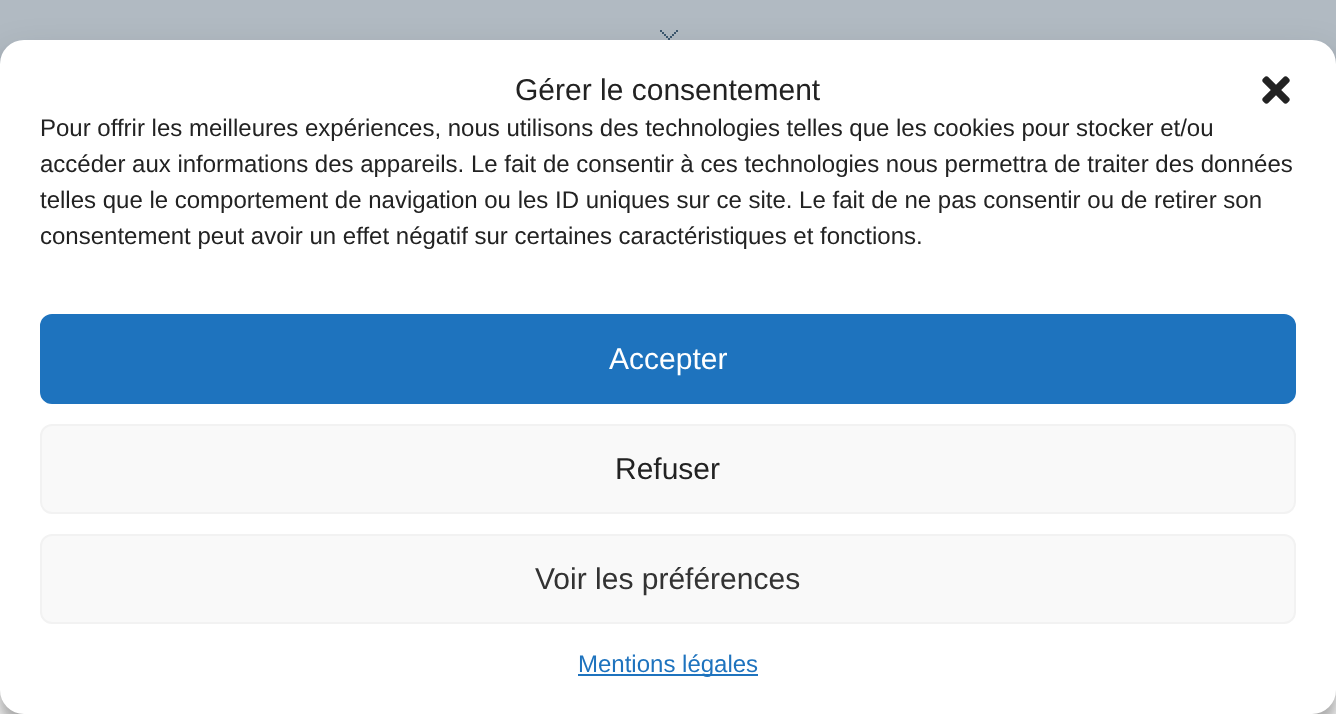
<svg xmlns="http://www.w3.org/2000/svg" width="1336" height="714">
<rect width="100%" height="100%" fill="#b1bac2"/>
<rect x="668" y="38" width="2" height="2" fill="#3c576e"/>
<rect x="676" y="30" width="2" height="2" fill="#3c576e"/>
<rect x="660" y="30" width="2" height="2" fill="#3c576e"/>
<rect x="674" y="32" width="2" height="2" fill="#3c576e"/>
<rect x="662" y="32" width="2" height="2" fill="#3c576e"/>
<rect x="672" y="34" width="2" height="2" fill="#3c576e"/>
<rect x="664" y="34" width="2" height="2" fill="#3c576e"/>
<rect x="670" y="36" width="2" height="2" fill="#3c576e"/>
<rect x="666" y="36" width="2" height="2" fill="#3c576e"/>
<rect y="690" width="1336" height="24" fill="#fff"/>
<rect y="52" width="1336" height="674" rx="24" fill="#0000003b" filter="blur(6px)"/>
<rect y="60" width="1336" height="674" rx="24" fill="#00000030" filter="blur(20px)"/>
<rect y="40" width="1336" height="674" rx="24" fill="#fff"/>
<text x="515" y="100" style="font-family:Liberation Sans;font-size:30px;fill:#222">Gérer le consentement</text>
<image x="1262" y="76" width="28" height="28" href="media/1.png"/>
<text x="40" y="136" style="font-family:Liberation Sans;font-size:24px;fill:#222">Pour offrir les meilleures expériences, nous utilisons des technologies telles que les cookies pour stocker et/ou</text>
<text x="40" y="172" style="font-family:Liberation Sans;font-size:24px;fill:#222">accéder aux informations des appareils. Le fait de consentir à ces technologies nous permettra de traiter des données</text>
<text x="40" y="208" style="font-family:Liberation Sans;font-size:24px;fill:#222">telles que le comportement de navigation ou les ID uniques sur ce site. Le fait de ne pas consentir ou de retirer son</text>
<text x="40" y="244" style="font-family:Liberation Sans;font-size:24px;fill:#222">consentement peut avoir un effet négatif sur certaines caractéristiques et fonctions.</text>
<rect x="41" y="315" width="1254" height="88" rx="11" fill="#1e73be" stroke="#1e73be" stroke-width="2"/>
<text x="609" y="369" style="font-family:Liberation Sans;font-size:30px;fill:#fff">Accepter</text>
<rect x="41" y="425" width="1254" height="88" rx="11" fill="#f9f9f9" stroke="#f2f2f2" stroke-width="2"/>
<text x="615" y="479" style="font-family:Liberation Sans;font-size:30px;fill:#222">Refuser</text>
<rect x="41" y="535" width="1254" height="88" rx="11" fill="#f9f9f9" stroke="#f2f2f2" stroke-width="2"/>
<text x="535" y="589" style="font-family:Liberation Sans;font-size:30px;fill:#333">Voir les préférences</text>
<rect x="578" y="674" width="180" height="2" fill="#1e73be"/>
<text x="578" y="672" style="font-family:Liberation Sans;font-size:24px;fill:#1e73be">Mentions légales</text>
</svg>
